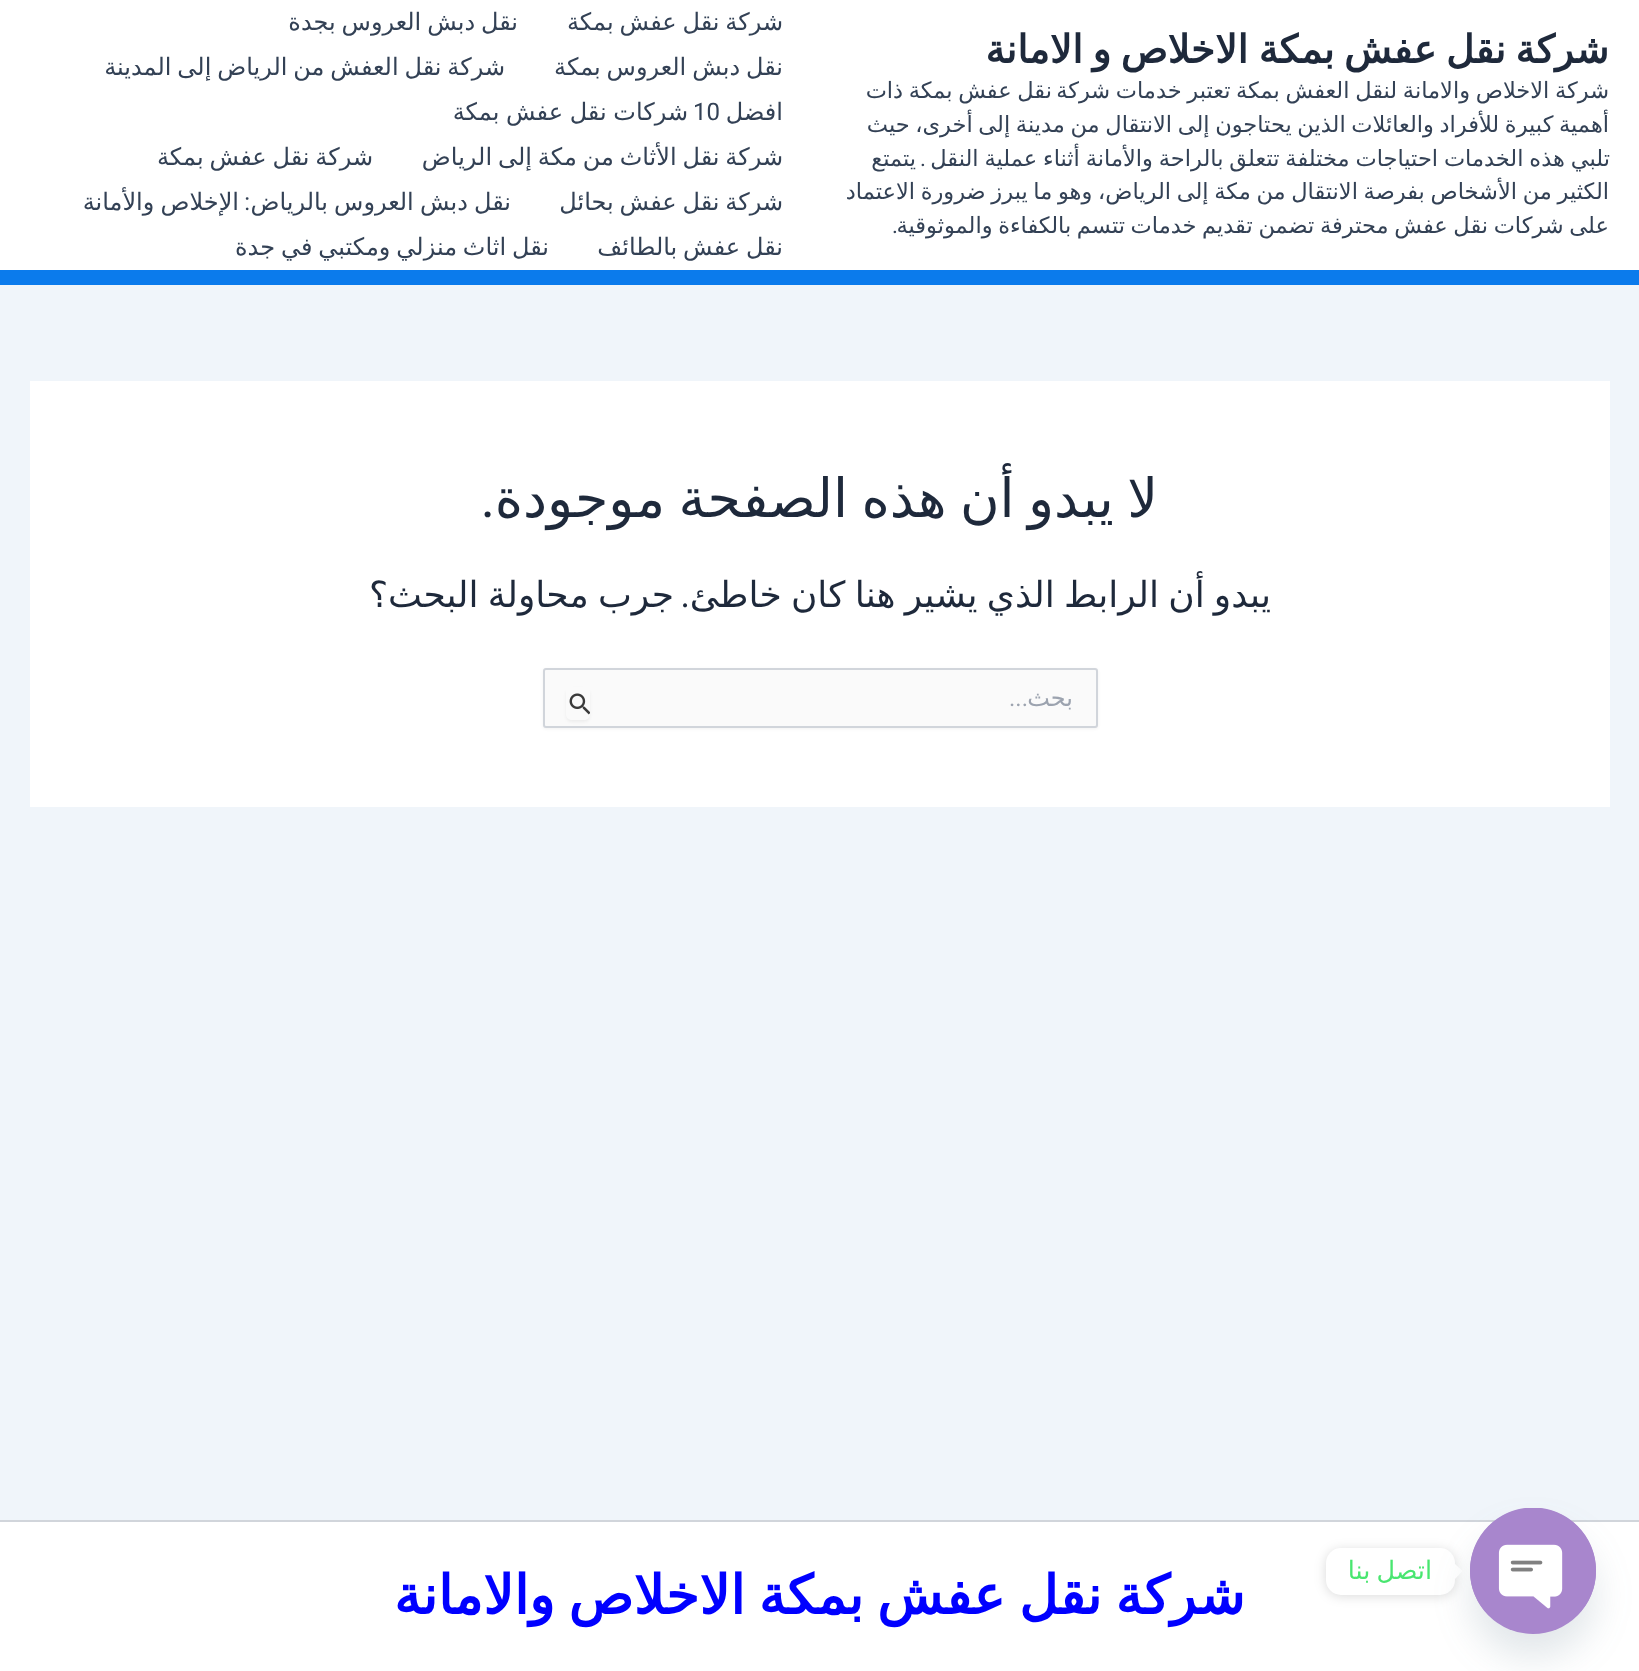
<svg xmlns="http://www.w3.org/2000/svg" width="1639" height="1671">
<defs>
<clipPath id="clip1"><path d="M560 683h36v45h-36zm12 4h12c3.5 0 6 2.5 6 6v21c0 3.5-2.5 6-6 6h-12c-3.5 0-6-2.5-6-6v-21c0-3.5 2.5-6 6-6z" clip-rule="evenodd"/></clipPath>
</defs>
<rect width="100%" height="100%" fill="#f0f5fa"/>
<rect width="1639" height="270" fill="#fff"/>
<rect y="270" width="1639" height="15" fill="#0b7bec"/>
<text x="1609" y="63" word-spacing="-3" style="font-family:DejaVu Sans;font-size:39px;font-weight:bold;direction:rtl;fill:#1e293b">شركة نقل عفش بمكة</text>
<text x="1248" y="63" word-spacing="-3" style="font-family:DejaVu Sans;font-size:39px;font-weight:bold;direction:rtl;fill:#1e293b">الاخلاص و الامانة</text>
<text x="1609" y="98" word-spacing="-1.5" style="font-family:DejaVu Sans;font-size:22.5px;direction:rtl;fill:#334155">شركة الاخلاص والامانة لنقل العفش بمكة تعتبر خدمات شركة</text>
<text x="1052" y="98" word-spacing="-1.5" style="font-family:DejaVu Sans;font-size:22.5px;direction:rtl;fill:#334155">نقل عفش بمكة ذات</text>
<text x="1609" y="132" word-spacing="-1.5" style="font-family:DejaVu Sans;font-size:22.5px;direction:rtl;fill:#334155">أهمية كبيرة للأفراد والعائلات الذين يحتاجون إلى الانتقال من مدينة إلى أخرى، حيث</text>
<text x="1610" y="166" word-spacing="-1.25" style="font-family:DejaVu Sans;font-size:22.5px;direction:rtl;fill:#334155">تلبي هذه الخدمات احتياجات مختلفة تتعلق بالراحة والأمانة أثناء عملية النقل</text>
<text x="926" y="166" style="font-family:Roboto;font-size:22.5px;direction:rtl;fill:#334155">.</text>
<text x="916" y="166" style="font-family:DejaVu Sans;font-size:22.5px;direction:rtl;fill:#334155">يتمتع</text>
<text x="1609" y="199" word-spacing="-1.5" style="font-family:DejaVu Sans;font-size:22.5px;direction:rtl;fill:#334155">الكثير من الأشخاص بفرصة الانتقال من مكة إلى الرياض، وهو ما يبرز ضرورة الاعتماد</text>
<text x="1609" y="233" word-spacing="-1.5" style="font-family:DejaVu Sans;font-size:22.5px;direction:rtl;fill:#334155">على شركات نقل عفش محترفة تضمن تقديم خدمات تتسم بالكفاءة والموثوقية</text>
<text x="898" y="233" style="font-family:Roboto;font-size:22.5px;direction:rtl;fill:#334155">.</text>
<text x="783" y="30" word-spacing="-1.75" style="font-family:DejaVu Sans;font-size:24px;direction:rtl;fill:#334155">شركة نقل عفش بمكة</text>
<text x="518" y="30" word-spacing="-1.75" style="font-family:DejaVu Sans;font-size:24px;direction:rtl;fill:#334155">نقل دبش العروس بجدة</text>
<text x="783" y="75" word-spacing="-1.75" style="font-family:DejaVu Sans;font-size:24px;direction:rtl;fill:#334155">نقل دبش العروس بمكة</text>
<text x="505" y="75" word-spacing="-1.75" style="font-family:DejaVu Sans;font-size:24px;direction:rtl;fill:#334155">شركة نقل العفش من الرياض إلى المدينة</text>
<text x="783" y="120" style="font-family:DejaVu Sans;font-size:24px;direction:rtl;fill:#334155">افضل</text>
<text x="693" y="120" style="font-family:Roboto;font-size:24px;fill:#334155">10</text>
<text x="688" y="120" word-spacing="-1" style="font-family:DejaVu Sans;font-size:24px;direction:rtl;fill:#334155">شركات نقل عفش بمكة</text>
<text x="783" y="165" word-spacing="-1.75" style="font-family:DejaVu Sans;font-size:24px;direction:rtl;fill:#334155">شركة نقل الأثاث من مكة إلى الرياض</text>
<text x="373" y="165" word-spacing="-1.75" style="font-family:DejaVu Sans;font-size:24px;direction:rtl;fill:#334155">شركة نقل عفش بمكة</text>
<text x="783" y="210" word-spacing="-1.75" style="font-family:DejaVu Sans;font-size:24px;direction:rtl;fill:#334155">شركة نقل عفش بحائل</text>
<text x="511" y="210" word-spacing="-1.5" style="font-family:DejaVu Sans;font-size:24px;direction:rtl;fill:#334155">نقل دبش العروس بالرياض</text>
<text x="250" y="210" style="font-family:Roboto;font-size:24px;direction:rtl;fill:#334155">:</text>
<text x="239" y="210" word-spacing="-1.5" style="font-family:DejaVu Sans;font-size:24px;direction:rtl;fill:#334155">الإخلاص والأمانة</text>
<text x="783" y="255" word-spacing="-1.75" style="font-family:DejaVu Sans;font-size:24px;direction:rtl;fill:#334155">نقل عفش بالطائف</text>
<text x="549" y="255" word-spacing="-1.75" style="font-family:DejaVu Sans;font-size:24px;direction:rtl;fill:#334155">نقل اثاث منزلي ومكتبي في جدة</text>
<rect x="30" y="381" width="1580" height="426" fill="#fff"/>
<text x="1158" y="517" word-spacing="-3.75" style="font-family:DejaVu Sans;font-size:54px;direction:rtl;fill:#1e293b">لا يبدو أن هذه الصفحة موجودة</text>
<text x="495" y="517" style="font-family:Roboto;font-size:54px;direction:rtl;fill:#1e293b">.</text>
<text x="1271" y="607" word-spacing="-2.25" style="font-family:DejaVu Sans;font-size:36px;direction:rtl;fill:#1e293b">يبدو أن الرابط الذي يشير هنا كان خاطئ</text>
<text x="690" y="607" style="font-family:Roboto;font-size:36px;direction:rtl;fill:#1e293b">.</text>
<text x="674" y="607" word-spacing="-2.25" style="font-family:DejaVu Sans;font-size:36px;direction:rtl;fill:#1e293b">جرب محاولة البحث؟</text>
<rect x="543" y="669" width="555" height="60" rx="3" fill="#0000000d" filter="blur(1.5px)"/>
<rect x="544" y="669" width="553" height="58" rx="2" fill="#fafafa" stroke="#d1d5db" stroke-width="2"/>
<text x="1073" y="706" style="font-family:DejaVu Sans;font-size:24px;direction:rtl;fill:#9ca3af">بحث</text>
<text x="1028" y="706" style="font-family:Roboto;font-size:24px;direction:rtl;fill:#9ca3af">...</text>
<g clip-path="url(#clip1)">
<rect x="566" y="689" width="24" height="33" rx="6" fill="#0000000d" filter="blur(1.5px)"/>
</g>
<image x="569" y="693" width="21" height="22" href="media/1.png"/>
<rect y="1522" width="1639" height="149" fill="#fff"/>
<rect y="1520" width="1639" height="2" fill="#d1d5db"/>
<text x="1245" y="1614" word-spacing="-3.75" style="font-family:DejaVu Sans;font-size:54px;font-weight:bold;direction:rtl;fill:#00f">شركة نقل عفش بمكة الاخلاص والامانة</text>
<rect x="1326" y="1550" width="129" height="46" rx="15" fill="#00000026" filter="blur(6px)"/>
<rect x="1326" y="1548" width="129" height="47" rx="15" fill="#fff"/>
<path d="M1455 1579v-15l7.5 7z" fill="#fff"/>
<rect x="1470" y="1532" width="126" height="126" rx="63" fill="#49687e29" filter="blur(18px)"/>
<circle cx="1533" cy="1571" r="63" fill="#a886cd"/>
<image x="1470" y="1508" width="126" height="107" href="media/2.png"/>
<text x="1432" y="1579" word-spacing="-2" style="font-family:DejaVu Sans;font-size:25.5px;direction:rtl;fill:#49e670">اتصل بنا</text>
</svg>
